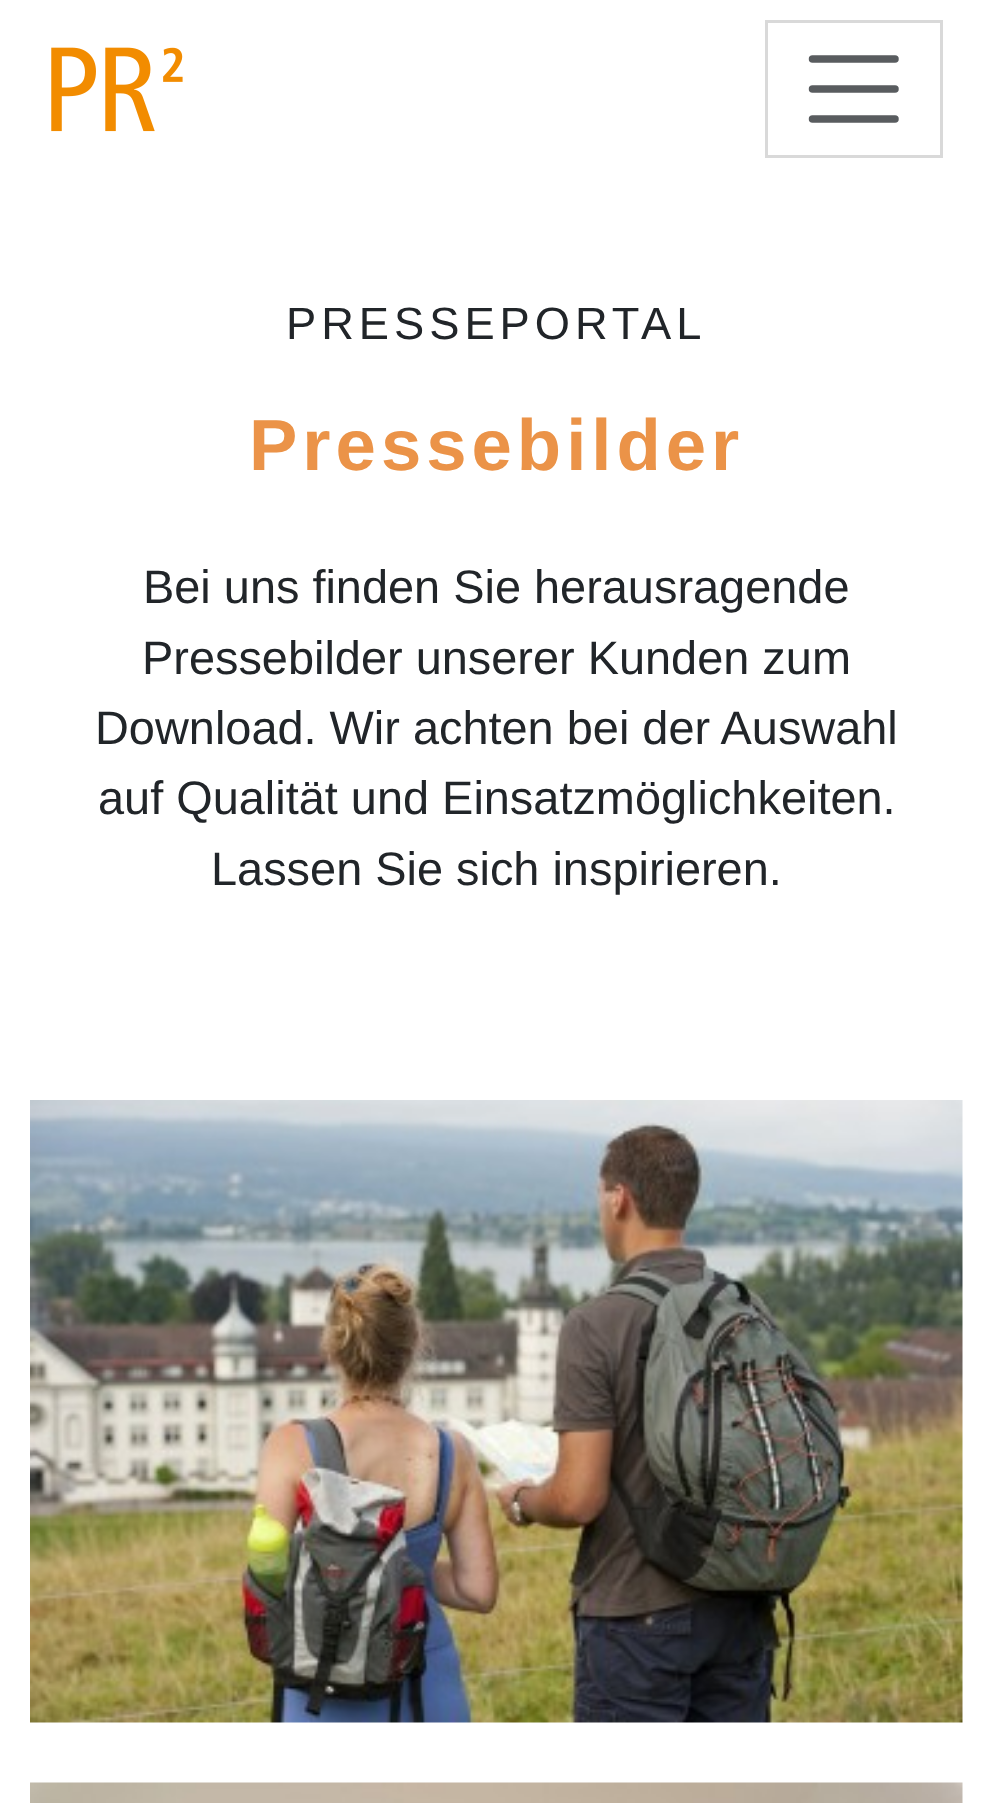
<svg xmlns="http://www.w3.org/2000/svg" width="991" height="1803">
<rect width="100%" height="100%" fill="#fff"/>
<image x="51" y="47" width="132" height="85" href="media/1.png"/>
<rect x="766.5" y="21.5" width="175" height="135" fill="none" stroke="#d9d9d9" stroke-width="3"/>
<path d="M812.5 59h82.5m-82.5 30h82.5m-82.5 30h82.5" fill="none" stroke="#595c5f" stroke-width="7.5" stroke-linecap="round"/>
<text x="286" y="339" style="font-family:Liberation Sans;font-size:45.25px;letter-spacing:5px;fill:#212529">PRESSEPORTAL</text>
<text x="249" y="470" style="font-family:Liberation Sans;font-size:72.5px;font-weight:bold;letter-spacing:5px;fill:#eb9348">Pressebilder</text>
<text x="143" y="603" style="font-family:Liberation Sans;font-size:46.9px;fill:#212529">Bei uns finden Sie herausragende</text>
<text x="142" y="674" style="font-family:Liberation Sans;font-size:46.9px;fill:#212529">Pressebilder unserer Kunden zum</text>
<text x="95" y="744" style="font-family:Liberation Sans;font-size:46.9px;fill:#212529">Download. Wir achten bei der Auswahl</text>
<text x="98" y="814" style="font-family:Liberation Sans;font-size:46.9px;fill:#212529">auf Qualität und Einsatzmöglichkeiten.</text>
<text x="211" y="885" style="font-family:Liberation Sans;font-size:46.9px;fill:#212529">Lassen Sie sich inspirieren.</text>
<image x="30" y="1100" width="933" height="623" href="media/2.png"/>
<image x="30" y="1782" width="933" height="21" href="media/3.png"/>
</svg>
